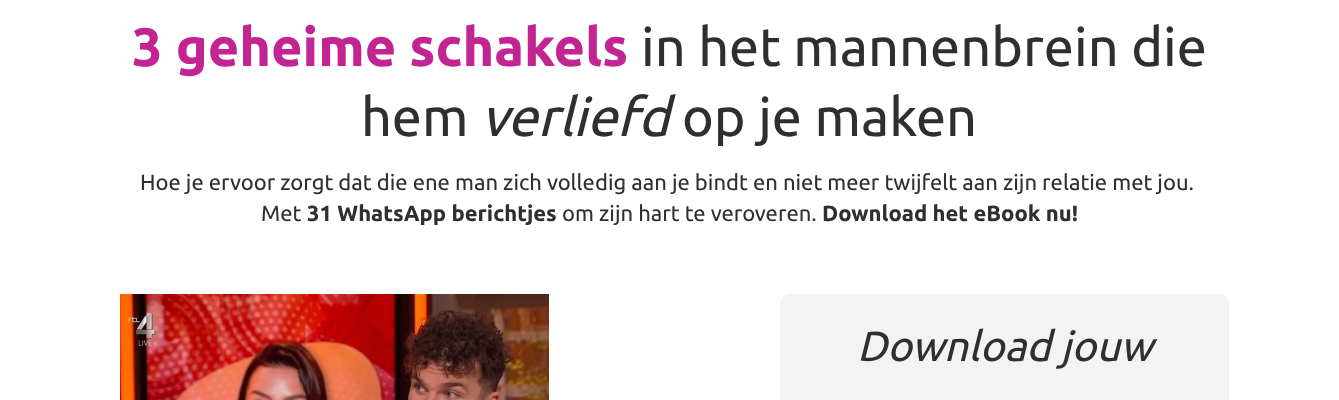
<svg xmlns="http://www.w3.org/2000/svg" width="1339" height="400">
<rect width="100%" height="100%" fill="#fff"/>
<text x="132" y="66" style="font-family:Ubuntu;font-size:54px;font-weight:bold;fill:#c22591">3 geheime schakels</text>
<text x="641" y="66" style="font-family:Ubuntu;font-size:54px;fill:#2f2f2f">in het mannenbrein die</text>
<text x="361" y="136" style="font-family:Ubuntu;font-size:54px;fill:#2f2f2f">hem</text>
<text x="481" y="136" style="font-family:Ubuntu;font-size:54px;font-style:italic;fill:#2f2f2f">verliefd</text>
<text x="682" y="136" style="font-family:Ubuntu;font-size:54px;fill:#2f2f2f">op je maken</text>
<text x="140" y="190" style="font-family:Ubuntu;font-size:22px;fill:#2f2f2f">Hoe je ervoor zorgt dat die ene man zich volledig aan je bindt en niet meer twijfelt aan zijn relatie met jou.</text>
<text x="261" y="221" style="font-family:Ubuntu;font-size:22px;fill:#2f2f2f">Met</text>
<text x="307" y="221" style="font-family:Ubuntu;font-size:22px;font-weight:bold;fill:#2f2f2f">31 WhatsApp berichtjes</text>
<text x="562" y="221" style="font-family:Ubuntu;font-size:22px;fill:#2f2f2f">om zijn hart te veroveren.</text>
<text x="822" y="221" style="font-family:Ubuntu;font-size:22px;font-weight:bold;fill:#2f2f2f">Download het eBook nu!</text>
<image x="120" y="294" width="429" height="106" href="media/1.png"/>
<rect x="780" y="294" width="449" height="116" rx="10" fill="#f3f3f3"/>
<text x="857" y="361" style="font-family:Ubuntu;font-size:42px;font-style:italic;fill:#2f2f2f">Download jouw</text>
</svg>
